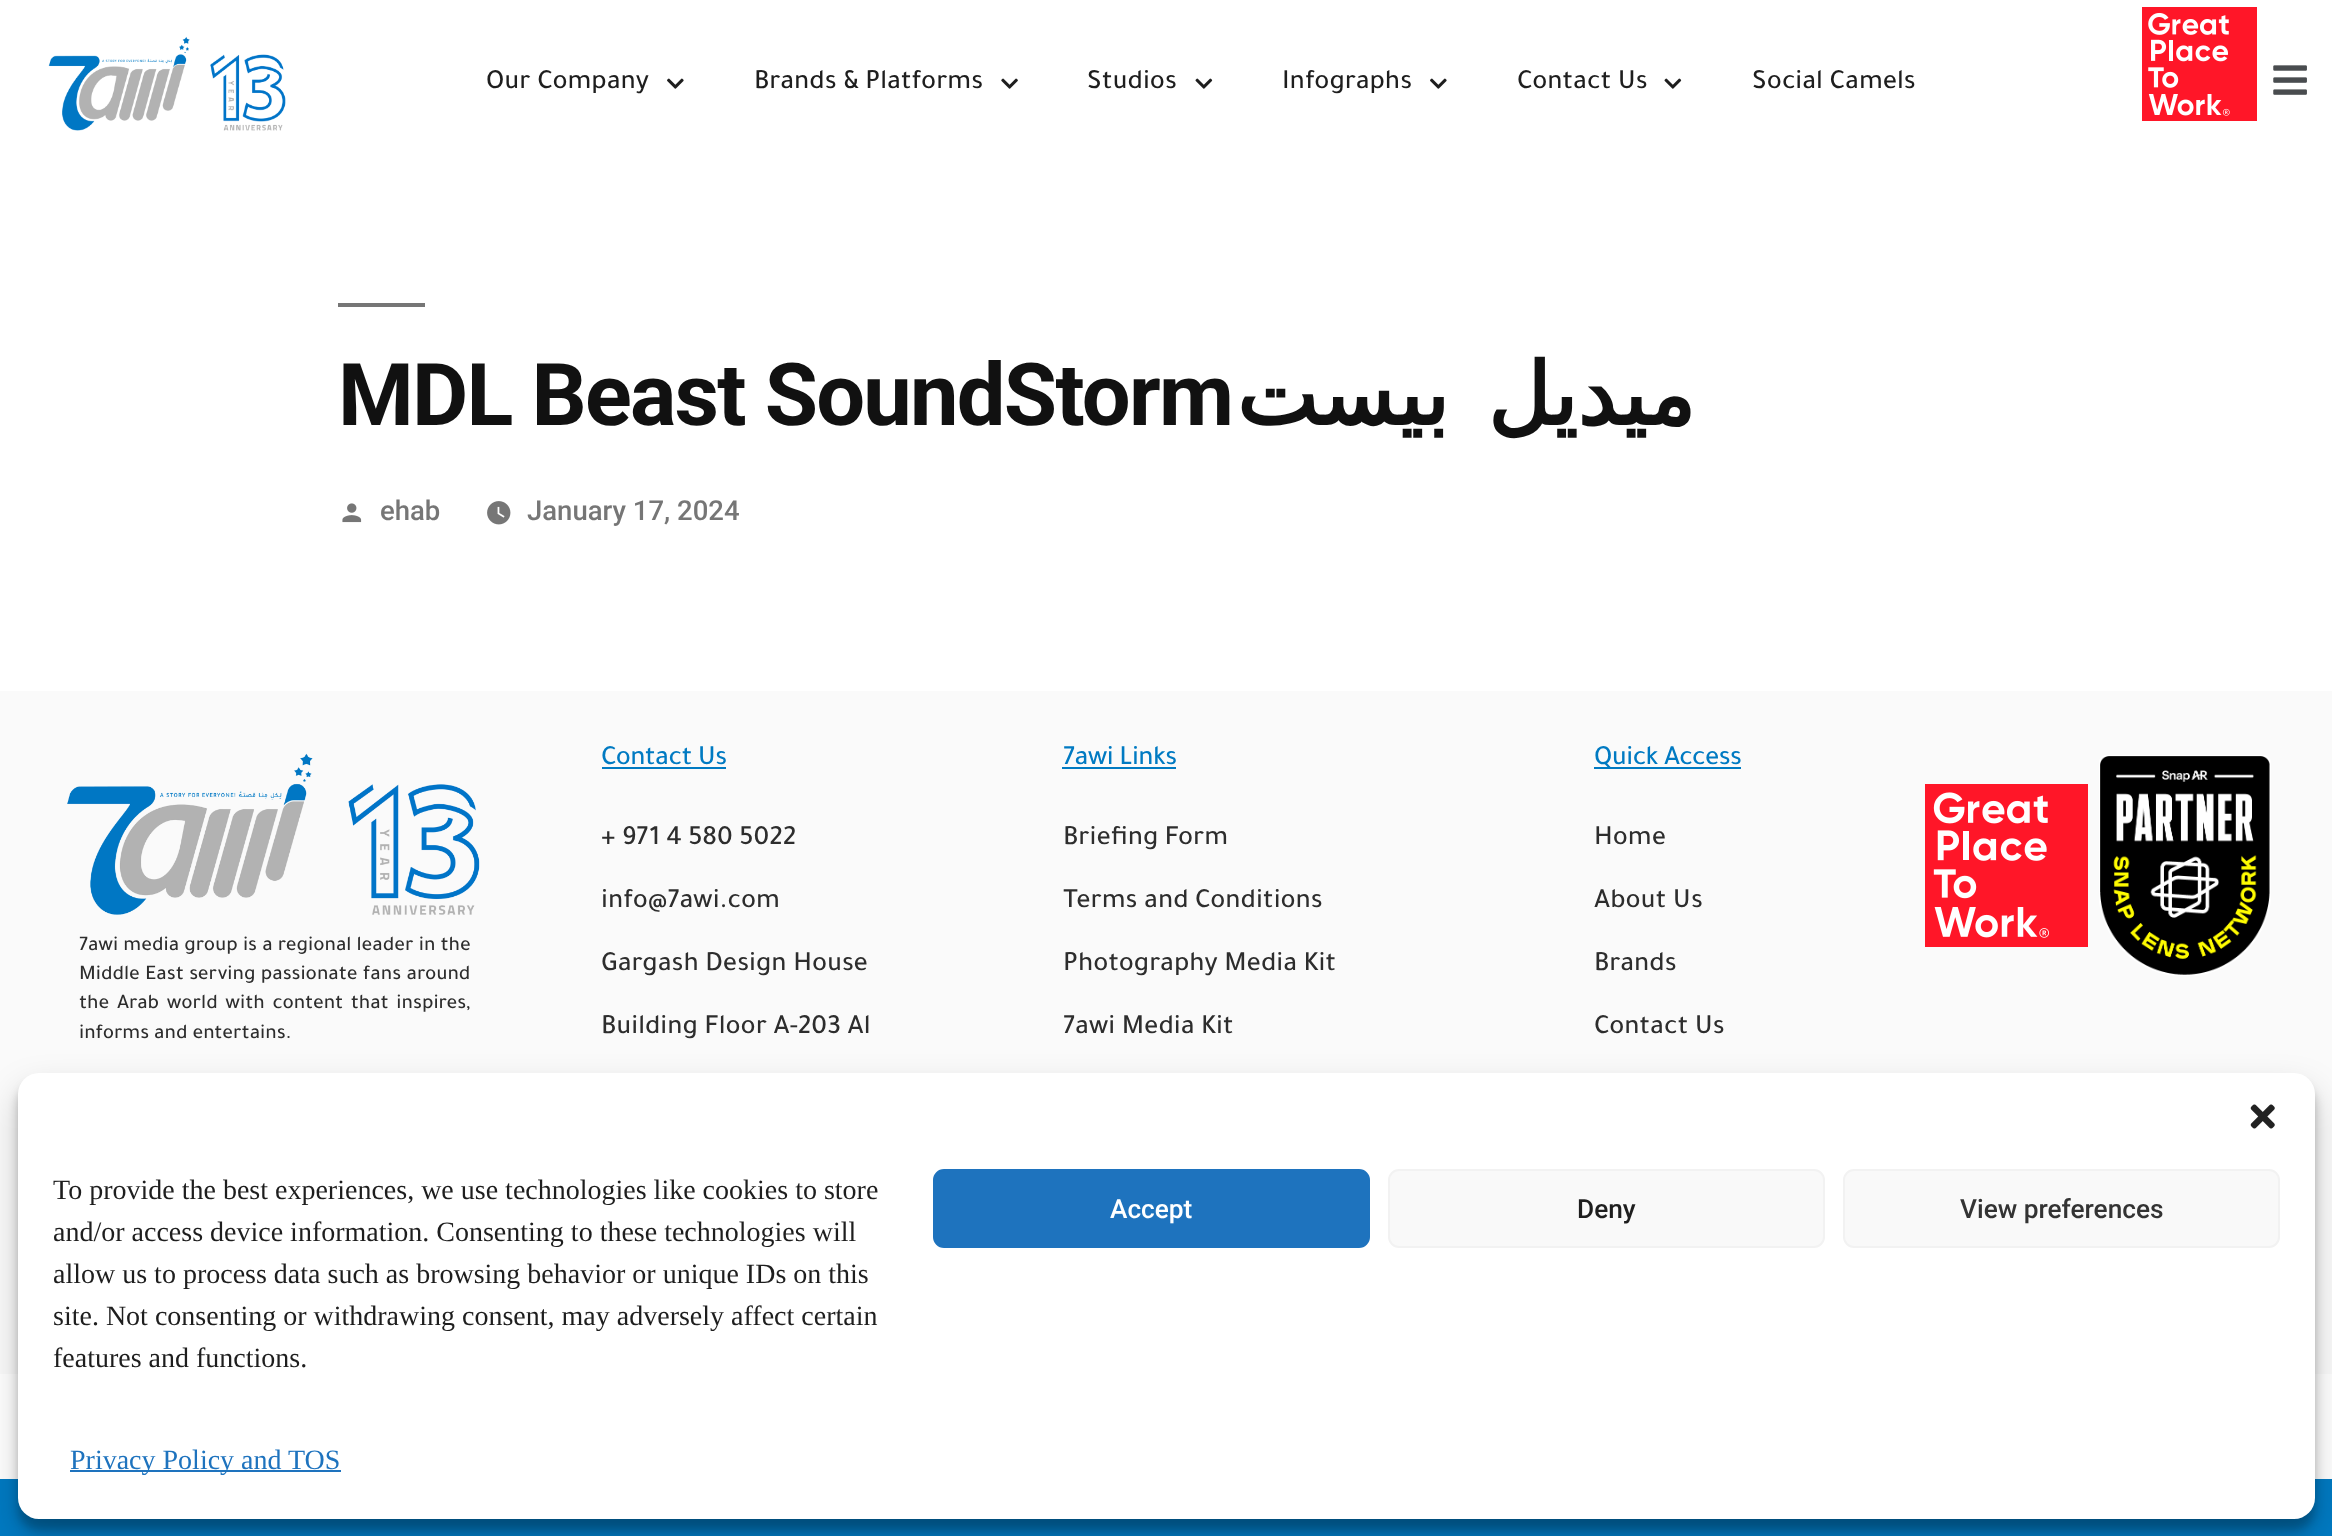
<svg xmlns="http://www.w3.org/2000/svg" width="2332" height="1536">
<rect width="100%" height="100%" fill="#fff"/>
<image x="48" y="36" width="238" height="95" href="media/1.png"/>
<text x="486" y="88" style="font-family:Tajawal;font-size:28px;font-weight:500;fill:#1e1e1e">Our Company</text>
<image x="667" y="78" width="17" height="11" href="media/2.png"/>
<text x="754" y="88" style="font-family:Tajawal;font-size:28px;font-weight:500;fill:#1e1e1e">Brands &amp; Platforms</text>
<image x="1001" y="78" width="17" height="11" href="media/3.png"/>
<text x="1087" y="88" style="font-family:Tajawal;font-size:28px;font-weight:500;fill:#1e1e1e">Studios</text>
<image x="1195" y="78" width="18" height="11" href="media/4.png"/>
<text x="1282" y="88" style="font-family:Tajawal;font-size:28px;font-weight:500;fill:#1e1e1e">Infographs</text>
<image x="1430" y="78" width="17" height="11" href="media/2.png"/>
<text x="1517" y="88" style="font-family:Tajawal;font-size:28px;font-weight:500;fill:#1e1e1e">Contact Us</text>
<image x="1664" y="78" width="18" height="11" href="media/4.png"/>
<text x="1752" y="88" style="font-family:Tajawal;font-size:28px;font-weight:500;fill:#1e1e1e">Social Camels</text>
<image x="2142" y="7" width="115" height="114" href="media/5.png"/>
<image x="2273" y="65" width="34" height="30" href="media/6.png"/>
<rect x="338" y="303" width="87" height="4" fill="#767676"/>
<text x="338" y="425" style="font-family:Roboto;font-size:86.6px;font-weight:bold;letter-spacing:-1.75px;fill:#111">MDL Beast SoundStorm</text>
<text x="1695" y="425" word-spacing="11" style="font-family:DejaVu Sans;font-size:86.6px;font-weight:bold;letter-spacing:-1.75px;direction:rtl;fill:#111">ميديل بيست</text>
<image x="342" y="503" width="20" height="20" href="media/7.png"/>
<text x="380" y="520" style="font-family:Roboto;font-size:27.5px;font-weight:500;fill:#767676">ehab</text>
<image x="487" y="501" width="24" height="24" href="media/8.png"/>
<text x="527" y="520" style="font-family:Roboto;font-size:27.5px;font-weight:500;fill:#767676">January 17, 2024</text>
<rect y="691" width="2332" height="683" fill="#fafafa"/>
<text x="601" y="764" style="font-family:'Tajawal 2';font-size:28px;font-weight:500;letter-spacing:-0.5px;fill:#007ac2">Contact Us</text>
<rect x="602" y="767" width="124" height="2" fill="#007ac2"/>
<text x="601" y="844" style="font-family:Tajawal;font-size:28px;font-weight:500;fill:#2d2d2d">+ 971 4 580 5022</text>
<text x="601" y="907" style="font-family:Tajawal;font-size:28px;font-weight:500;fill:#2d2d2d">info@7awi.com</text>
<text x="601" y="970" style="font-family:Tajawal;font-size:28px;font-weight:500;fill:#2d2d2d">Gargash Design House</text>
<text x="601" y="1033" style="font-family:Tajawal;font-size:28px;font-weight:500;fill:#2d2d2d">Building Floor A-203 Al</text>
<text x="1063" y="764" style="font-family:'Tajawal 2';font-size:28px;font-weight:500;letter-spacing:-0.5px;fill:#007ac2">7awi Links</text>
<rect x="1062" y="767" width="114" height="2" fill="#007ac2"/>
<text x="1063" y="844" style="font-family:Tajawal;font-size:28px;font-weight:500;fill:#2d2d2d">Briefing Form</text>
<text x="1063" y="907" style="font-family:Tajawal;font-size:28px;font-weight:500;fill:#2d2d2d">Terms and Conditions</text>
<text x="1063" y="970" style="font-family:Tajawal;font-size:28px;font-weight:500;fill:#2d2d2d">Photography Media Kit</text>
<text x="1063" y="1033" style="font-family:Tajawal;font-size:28px;font-weight:500;fill:#2d2d2d">7awi Media Kit</text>
<text x="1594" y="764" style="font-family:'Tajawal 2';font-size:28px;font-weight:500;letter-spacing:-0.5px;fill:#007ac2">Quick Access</text>
<rect x="1594" y="767" width="147" height="2" fill="#007ac2"/>
<text x="1594" y="844" style="font-family:Tajawal;font-size:28px;font-weight:500;fill:#2d2d2d">Home</text>
<text x="1594" y="907" style="font-family:Tajawal;font-size:28px;font-weight:500;fill:#2d2d2d">About Us</text>
<text x="1594" y="970" style="font-family:Tajawal;font-size:28px;font-weight:500;fill:#2d2d2d">Brands</text>
<text x="1594" y="1033" style="font-family:Tajawal;font-size:28px;font-weight:500;fill:#2d2d2d">Contact Us</text>
<image x="1925" y="784" width="163" height="163" href="media/9.png"/>
<image x="2099" y="755" width="172" height="221" href="media/10.png"/>
<image x="67" y="753" width="413" height="162" href="media/11.png"/>
<text x="79" y="950" word-spacing="0.25" style="font-family:Tajawal;font-size:21px;font-weight:500;fill:#2d2d2d">7awi media group is a regional leader in the</text>
<text x="79" y="979" word-spacing="0.5" style="font-family:Tajawal;font-size:21px;font-weight:500;fill:#2d2d2d">Middle East serving passionate fans around</text>
<text x="79" y="1008" word-spacing="2.75" style="font-family:Tajawal;font-size:21px;font-weight:500;fill:#2d2d2d">the Arab world with content that inspires,</text>
<text x="79" y="1038" style="font-family:Tajawal;font-size:21px;font-weight:500;fill:#2d2d2d">informs and entertains.</text>
<rect y="1479" width="2332" height="57" fill="#007ac2"/>
<rect x="18" y="1083" width="2297" height="447" rx="21" fill="#0000003b" filter="blur(5px)"/>
<rect x="18" y="1090" width="2297" height="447" rx="21" fill="#00000030" filter="blur(17.5px)"/>
<rect x="18" y="1073" width="2297" height="446" rx="21" fill="#fff"/>
<image x="2250" y="1104" width="25" height="25" href="media/12.png"/>
<text x="53" y="1199" style="font-family:Liberation Serif;font-size:28px;fill:#1e1e1e">To provide the best experiences, we use technologies like cookies to store</text>
<text x="53" y="1241" style="font-family:Liberation Serif;font-size:28px;fill:#1e1e1e">and/or access device information. Consenting to these technologies will</text>
<text x="53" y="1283" style="font-family:Liberation Serif;font-size:28px;fill:#1e1e1e">allow us to process data such as browsing behavior or unique IDs on this</text>
<text x="53" y="1325" style="font-family:Liberation Serif;font-size:28px;fill:#1e1e1e">site. Not consenting or withdrawing consent, may adversely affect certain</text>
<text x="53" y="1367" style="font-family:Liberation Serif;font-size:28px;fill:#1e1e1e">features and functions.</text>
<rect x="934" y="1170" width="435" height="77" rx="10" fill="#1e73be" stroke="#1e73be" stroke-width="2"/>
<text x="1110" y="1218" style="font-family:Roboto;font-size:26.25px;font-weight:500;fill:#fff">Accept</text>
<rect x="1389" y="1170" width="435" height="77" rx="10" fill="#f9f9f9" stroke="#f2f2f2" stroke-width="2"/>
<text x="1577" y="1218" style="font-family:Roboto;font-size:26.25px;font-weight:500;fill:#1e1e1e">Deny</text>
<rect x="1844" y="1170" width="435" height="77" rx="10" fill="#f9f9f9" stroke="#f2f2f2" stroke-width="2"/>
<text x="1960" y="1218" style="font-family:Roboto;font-size:26.25px;font-weight:500;fill:#333">View preferences</text>
<rect x="70" y="1470" width="271" height="2" fill="#1e73be"/>
<text x="70" y="1469" style="font-family:Liberation Serif;font-size:28px;fill:#1e73be">Privacy Policy and TOS</text>
</svg>
